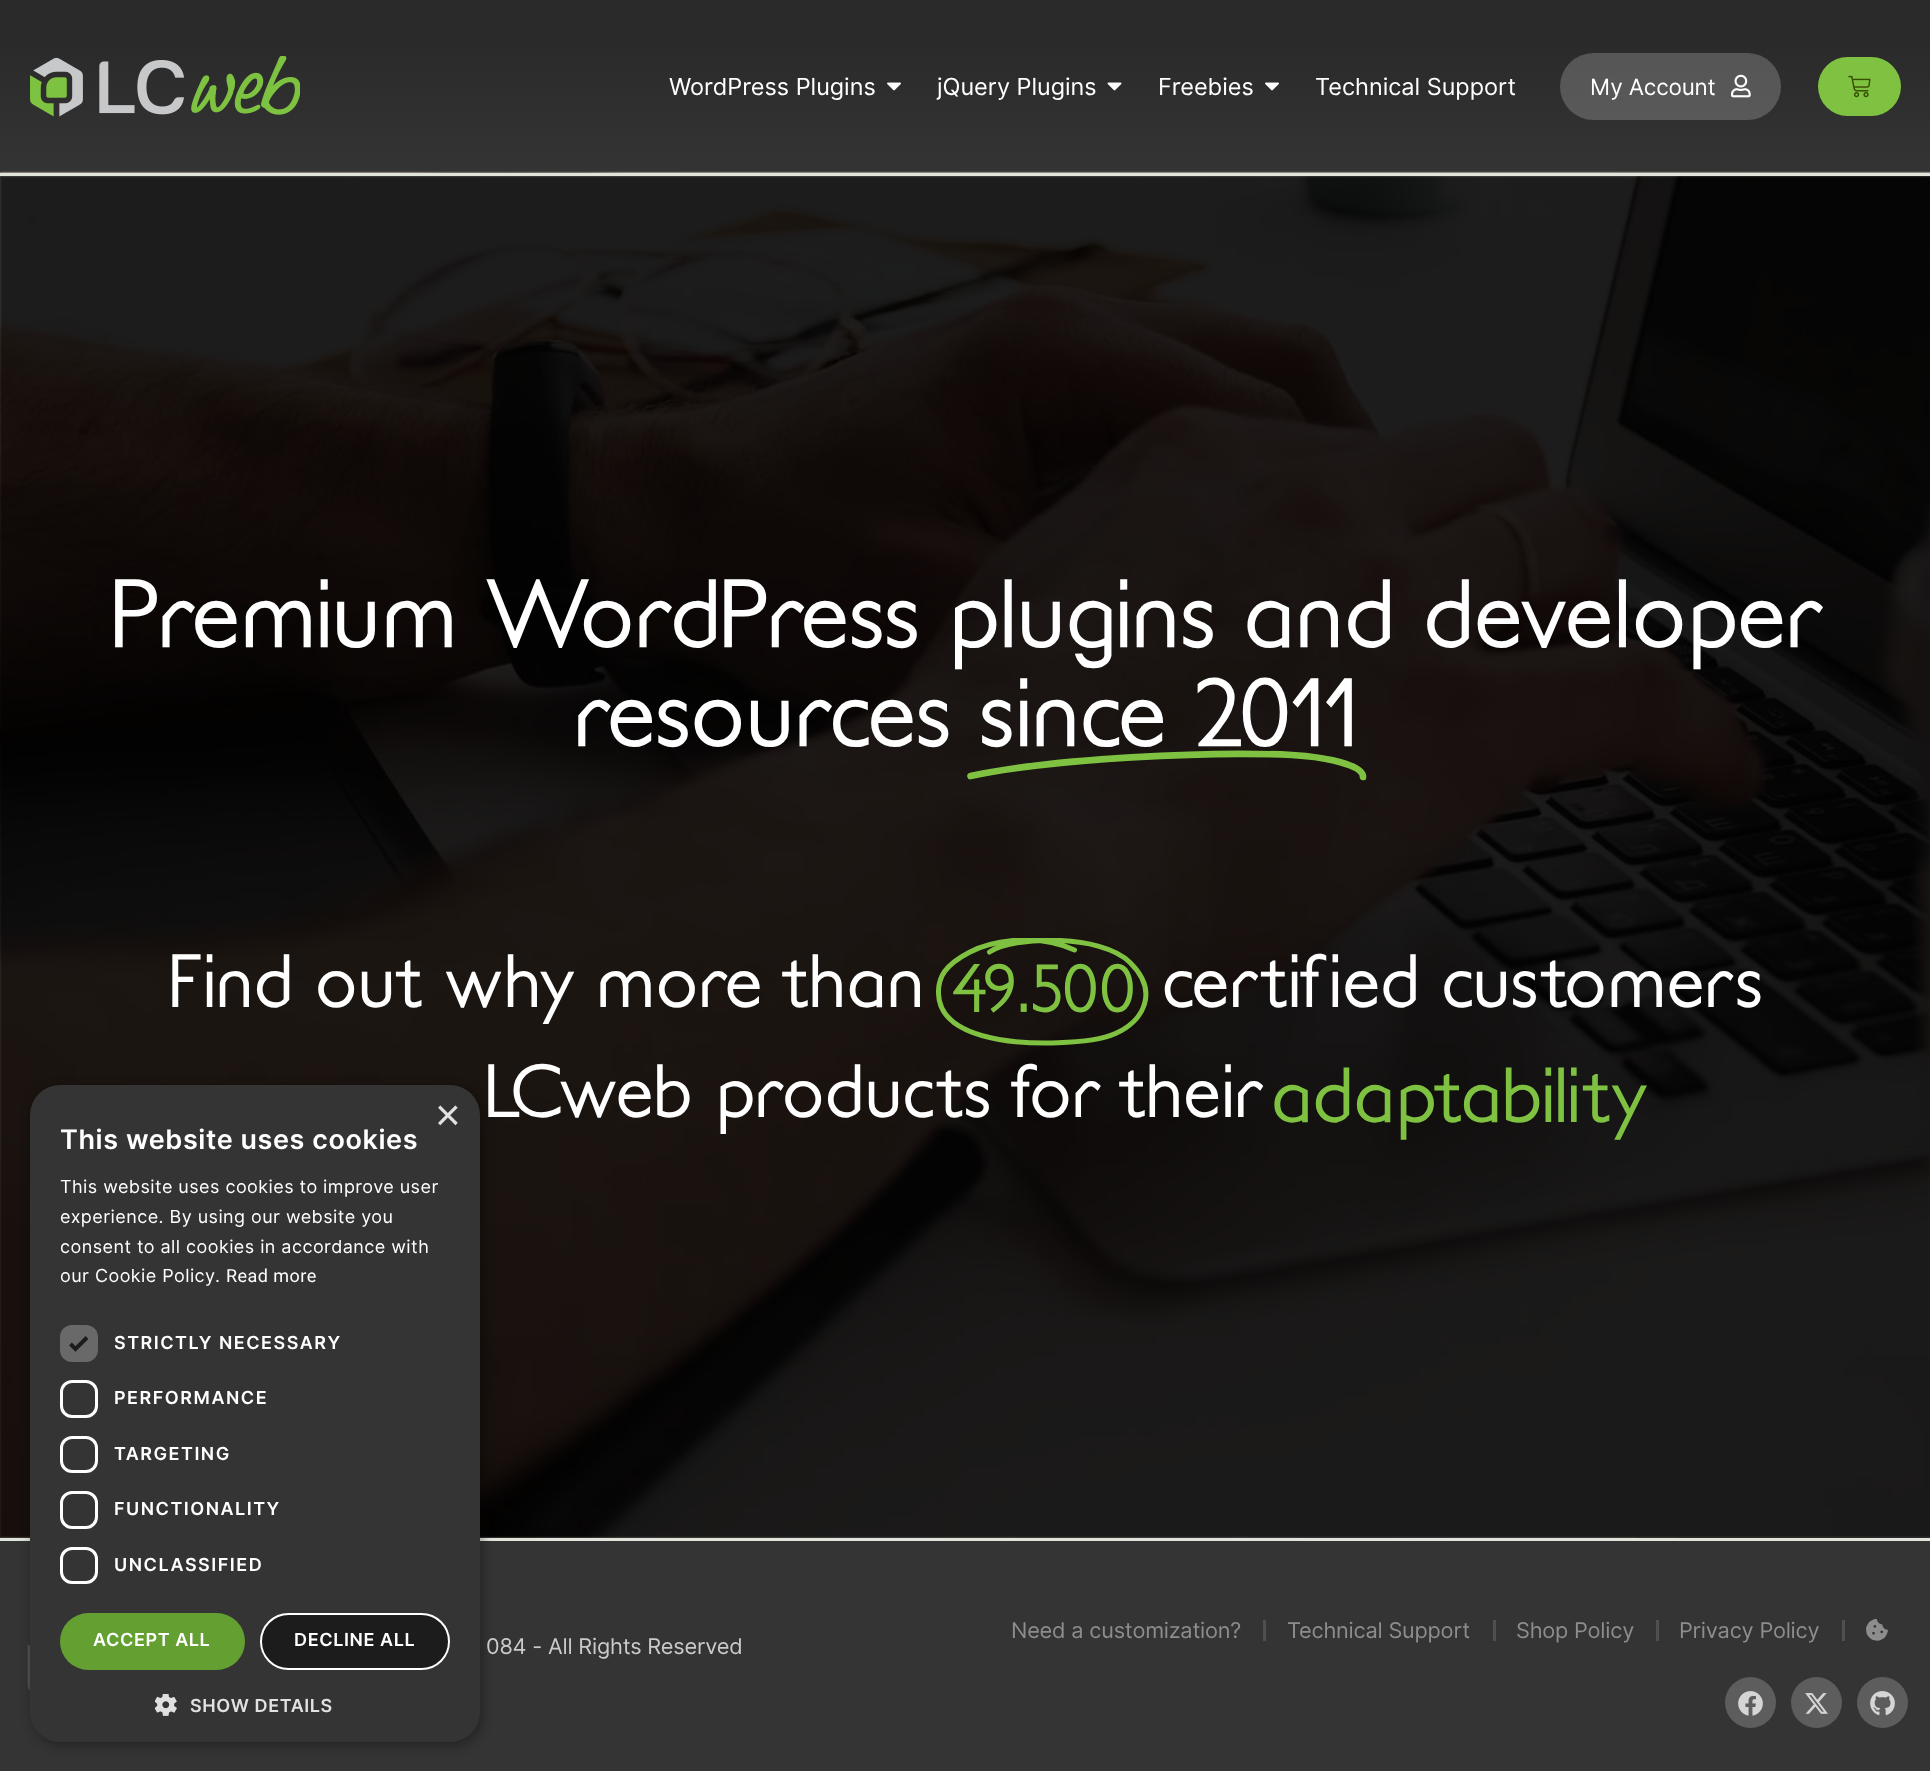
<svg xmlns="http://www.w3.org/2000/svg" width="1930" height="1771">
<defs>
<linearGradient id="g1" gradientUnits="userSpaceOnUse" x1="965" y1="0" x2="965" y2="173"><stop offset="0.23" stop-color="#2a2a2a"/><stop offset="1" stop-color="#343434"/></linearGradient>
<clipPath id="clip1"><rect x="936" y="938" width="215" height="108"/></clipPath>
</defs>
<rect width="100%" height="100%" fill="#fff"/>
<rect width="1930" height="173" fill="url(#g1)"/>
<image x="30" y="56" width="270" height="61" href="media/1.png"/>
<text x="669" y="95" style="font-family:Inter;font-size:23.5px;fill:#fff">WordPress Plugins</text>
<image x="887" y="82" width="14" height="9" href="media/2.png"/>
<text x="937" y="95" style="font-family:Inter;font-size:23.5px;fill:#fff">jQuery Plugins</text>
<image x="1107" y="82" width="15" height="9" href="media/3.png"/>
<text x="1158" y="95" style="font-family:Inter;font-size:23.5px;fill:#fff">Freebies</text>
<image x="1265" y="82" width="14" height="9" href="media/2.png"/>
<text x="1315" y="95" style="font-family:Inter;font-size:23.5px;fill:#fff">Technical Support</text>
<rect x="1560" y="53" width="221" height="67" rx="33.5" fill="#ffffff33"/>
<text x="1590" y="95" style="font-family:Inter;font-size:22.5px;letter-spacing:-0.2px;fill:#fff">My Account</text>
<image x="1731" y="74" width="20" height="24" href="media/4.png"/>
<rect x="1818" y="57" width="83" height="59" rx="29.5" fill="#7fc241"/>
<image x="1848" y="75" width="23" height="23" href="media/5.png"/>
<image x="0" y="172" width="1930" height="1366" href="media/6.png"/>
<rect y="176" width="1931" height="1362" fill="#000000a6" filter="blur(1px)"/>
<rect y="173" width="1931" height="3" fill="#e0e4db" filter="blur(1px)"/>
<rect y="1538" width="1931" height="3" fill="#e0e4db" filter="blur(1px)"/>
<rect y="173" width="1930" height="3" fill="#e0e4db"/>
<rect y="1538" width="1930" height="3" fill="#e0e4db"/>
<rect y="176" width="1930" height="1362" fill="#000000a6"/>
<text x="109" y="646" style="font-family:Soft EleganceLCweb;font-size:96px;letter-spacing:-0.2px;fill:#fff">Premium WordPress plugins and developer</text>
<text x="573" y="745" style="font-family:Soft EleganceLCweb;font-size:96px;letter-spacing:-0.2px;fill:#fff">resources since 2011</text>
<path d="M970.5 776c83-17.5 238.5-25 321.5-21c34 2 71.5 10 71 22" fill="none" stroke="#7fc241" stroke-width="6.7" stroke-linecap="round" stroke-linejoin="round"/>
<text x="168" y="1006" style="font-family:Soft EleganceLCweb;font-size:74.4px;fill:#fff">Find out why more than</text>
<g clip-path="url(#clip1)">
<path d="M1074.5 950c-41-19-88-7-105.5 2.5c-23.5 12.5-31 24-30.5 41c.5 23.5 22 39 60.5 46c28.5 5 90.5 5.5 116.5-6c27.5-12 44.5-41.5 14.5-71c-29-29-117.5-26.5-140.5-10.5" fill="none" stroke="#7fc241" stroke-width="5" stroke-linecap="round" stroke-linejoin="round"/>
</g>
<text x="952" y="1011" style="font-family:Soft EleganceLCweb;font-size:67px;letter-spacing:-0.2px;fill:#7fc241">49.500</text>
<text x="1162" y="1006" style="font-family:Soft EleganceLCweb;font-size:74.4px;fill:#fff">certified customers</text>
<text x="484" y="1116" style="font-family:Soft EleganceLCweb;font-size:74.4px;fill:#fff">LCweb products for their</text>
<text x="1271" y="1121" style="font-family:Soft EleganceLCweb;font-size:77px;fill:#7fc241">adaptability</text>
<rect y="1541" width="1930" height="230" fill="#343434"/>
<image x="27" y="1644" width="3" height="47" href="media/12.png"/>
<rect x="32" y="1088" width="450" height="657" rx="30" fill="#00000059" filter="blur(6px)"/>
<rect x="30" y="1085" width="450" height="657" rx="30" fill="#343434"/>
<text x="435" y="1130" style="font-family:Liberation Sans;font-size:44px;fill:#e1e1e1">×</text>
<text x="60" y="1149" style="font-family:Inter;font-size:27px;font-weight:600;letter-spacing:0.6px;fill:#fff">This website uses cookies</text>
<text x="60" y="1193" style="font-family:Inter;font-size:18px;letter-spacing:0.45px;fill:#fff">This website uses cookies to improve user</text>
<text x="60" y="1223" style="font-family:Inter;font-size:18px;letter-spacing:0.45px;fill:#fff">experience. By using our website you</text>
<text x="60" y="1253" style="font-family:Inter;font-size:18px;letter-spacing:0.45px;fill:#fff">consent to all cookies in accordance with</text>
<text x="60" y="1282" style="font-family:Inter;font-size:18px;letter-spacing:0.45px;fill:#fff">our Cookie Policy.</text>
<text x="226" y="1282" style="font-family:Roboto;font-size:18px;letter-spacing:0.45px;fill:#fff">Read more</text>
<rect x="60" y="1325" width="38" height="37" rx="12" fill="#696969"/>
<path d="M70.5 1344l5 5l11.5-11.5" fill="none" stroke="#1c1c1c" stroke-width="3.9"/>
<text x="114" y="1349" style="font-family:Inter;font-size:18px;font-weight:600;letter-spacing:1.5px;fill:#fff">STRICTLY NECESSARY</text>
<rect x="61.5" y="1381.5" width="35" height="35" rx="10.5" fill="none" stroke="#fff" stroke-width="3"/>
<text x="114" y="1404" style="font-family:Inter;font-size:18px;font-weight:600;letter-spacing:1.5px;fill:#fff">PERFORMANCE</text>
<rect x="61.5" y="1437.5" width="35" height="34" rx="10.5" fill="none" stroke="#fff" stroke-width="3"/>
<text x="114" y="1460" style="font-family:Inter;font-size:18px;font-weight:600;letter-spacing:1.5px;fill:#fff">TARGETING</text>
<rect x="61.5" y="1492.5" width="35" height="35" rx="10.5" fill="none" stroke="#fff" stroke-width="3"/>
<text x="114" y="1515" style="font-family:Inter;font-size:18px;font-weight:600;letter-spacing:1.5px;fill:#fff">FUNCTIONALITY</text>
<rect x="61.5" y="1548.5" width="35" height="34" rx="10.5" fill="none" stroke="#fff" stroke-width="3"/>
<text x="114" y="1571" style="font-family:Inter;font-size:18px;font-weight:600;letter-spacing:1.5px;fill:#fff">UNCLASSIFIED</text>
<rect x="60" y="1613" width="185" height="57" rx="28.5" fill="#63a031"/>
<text x="93" y="1646" style="font-family:Inter;font-size:18px;font-weight:600;letter-spacing:0.6px;fill:#fff">ACCEPT ALL</text>
<rect x="261" y="1614" width="188" height="55" rx="27.5" fill="#1c1c1c" stroke="#fff" stroke-width="2"/>
<text x="294" y="1646" style="font-family:Inter;font-size:18px;font-weight:600;letter-spacing:0.6px;fill:#fff">DECLINE ALL</text>
<image x="155" y="1694" width="22" height="22" href="media/7.png"/>
<text x="190" y="1712" style="font-family:Inter;font-size:18px;font-weight:600;letter-spacing:0.6px;fill:#e1e1e1">SHOW DETAILS</text>
<text x="1011" y="1638" style="font-family:Inter;font-size:21.75px;letter-spacing:-0.2px;fill:#8d8d8d">Need a customization?</text>
<rect x="1263" y="1620" width="3" height="21" fill="#4f4f4f"/>
<text x="1287" y="1638" style="font-family:Inter;font-size:21.75px;letter-spacing:-0.2px;fill:#8d8d8d">Technical Support</text>
<rect x="1493" y="1620" width="3" height="21" fill="#4f4f4f"/>
<text x="1516" y="1638" style="font-family:Inter;font-size:21.75px;letter-spacing:-0.2px;fill:#8d8d8d">Shop Policy</text>
<rect x="1656" y="1620" width="3" height="21" fill="#4f4f4f"/>
<text x="1679" y="1638" style="font-family:Inter;font-size:21.75px;letter-spacing:-0.2px;fill:#8d8d8d">Privacy Policy</text>
<rect x="1842" y="1620" width="3" height="21" fill="#4f4f4f"/>
<image x="1866" y="1618" width="22" height="23" href="media/8.png"/>
<circle cx="1750.5" cy="1702.5" r="25.5" fill="#5d5d5d"/>
<image x="1738" y="1691" width="25" height="25" href="media/9.png"/>
<circle cx="1816.5" cy="1702.5" r="25.5" fill="#5d5d5d"/>
<image x="1805" y="1693" width="23" height="21" href="media/10.png"/>
<circle cx="1882.5" cy="1702.5" r="25.5" fill="#5d5d5d"/>
<image x="1870" y="1691" width="25" height="25" href="media/11.png"/>
<text x="486" y="1654" style="font-family:Inter;font-size:21.75px;letter-spacing:-0.2px;fill:#cacaca">084 - All Rights Reserved</text>
</svg>
